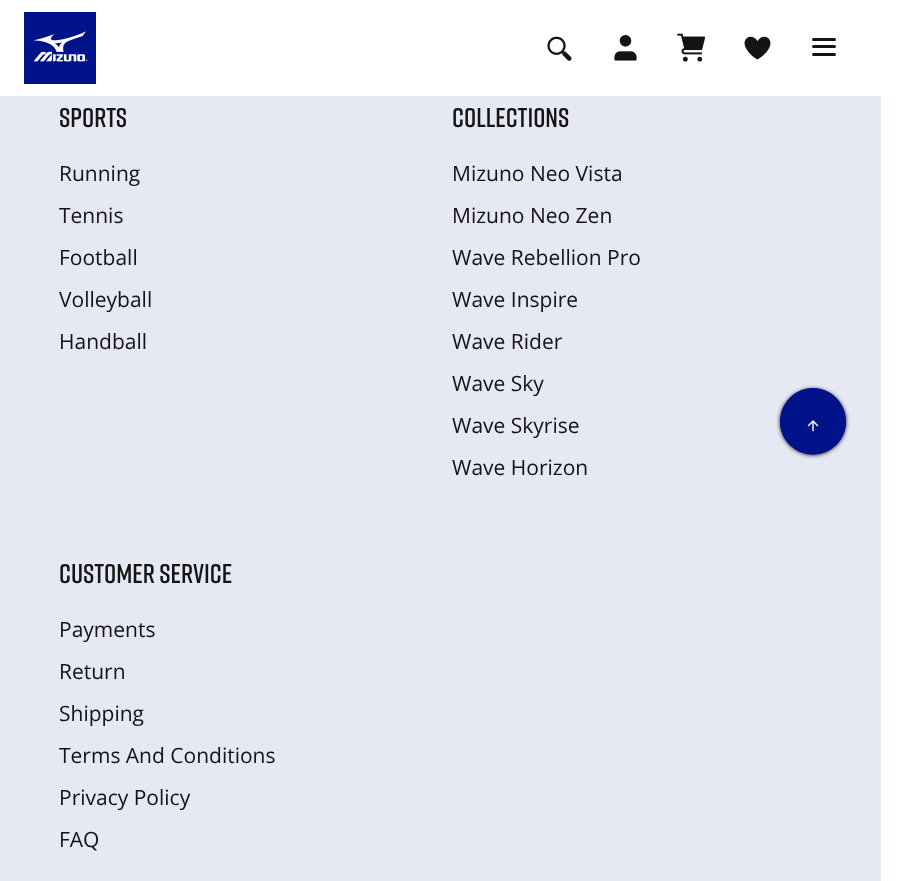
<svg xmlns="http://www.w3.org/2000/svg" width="903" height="881">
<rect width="100%" height="100%" fill="#fff"/>
<image x="24" y="12" width="72" height="72" href="media/1.png"/>
<image x="547" y="36" width="25" height="25" href="media/2.png"/>
<image x="614" y="35" width="23" height="26" href="media/3.png"/>
<image x="677" y="33" width="29" height="29" href="media/4.png"/>
<path d="M757.5 59.5c3.5-2 6.5-4.5 9-7.5c10.5-12-2.5-21-9-11c-6.5-10-19.5-1-9 11c2.5 3 5.5 5.5 9 7.5z" fill="#141414" fill-rule="evenodd"/>
<rect x="812" y="38" width="24" height="3" rx="1.5" fill="#141414"/>
<rect x="812" y="45" width="24" height="3" rx="1.5" fill="#141414"/>
<rect x="812" y="53" width="24" height="3" rx="1.5" fill="#141414"/>
<rect y="96" width="881" height="785" fill="#e6e8f4"/>
<text x="59" y="127" style="font-family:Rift;font-size:27px;font-weight:600;fill:#141414">SPORTS</text>
<text x="59" y="181" style="font-family:Open Sans;font-size:21px;fill:#141414">Running</text>
<text x="59" y="223" style="font-family:Open Sans;font-size:21px;fill:#141414">Tennis</text>
<text x="59" y="265" style="font-family:Open Sans;font-size:21px;fill:#141414">Football</text>
<text x="59" y="307" style="font-family:Open Sans;font-size:21px;fill:#141414">Volleyball</text>
<text x="59" y="349" style="font-family:Open Sans;font-size:21px;fill:#141414">Handball</text>
<text x="452" y="127" style="font-family:Rift;font-size:27px;font-weight:600;fill:#141414">COLLECTIONS</text>
<text x="452" y="181" style="font-family:Open Sans;font-size:21px;fill:#141414">Mizuno Neo Vista</text>
<text x="452" y="223" style="font-family:Open Sans;font-size:21px;fill:#141414">Mizuno Neo Zen</text>
<text x="452" y="265" style="font-family:Open Sans;font-size:21px;fill:#141414">Wave Rebellion Pro</text>
<text x="452" y="307" style="font-family:Open Sans;font-size:21px;fill:#141414">Wave Inspire</text>
<text x="452" y="349" style="font-family:Open Sans;font-size:21px;fill:#141414">Wave Rider</text>
<text x="452" y="391" style="font-family:Open Sans;font-size:21px;fill:#141414">Wave Sky</text>
<text x="452" y="433" style="font-family:Open Sans;font-size:21px;fill:#141414">Wave Skyrise</text>
<text x="452" y="475" style="font-family:Open Sans;font-size:21px;fill:#141414">Wave Horizon</text>
<text x="59" y="583" style="font-family:Rift;font-size:27px;font-weight:600;fill:#141414">CUSTOMER SERVICE</text>
<text x="59" y="637" style="font-family:Open Sans;font-size:21px;fill:#141414">Payments</text>
<text x="59" y="679" style="font-family:Open Sans;font-size:21px;fill:#141414">Return</text>
<text x="59" y="721" style="font-family:Open Sans;font-size:21px;fill:#141414">Shipping</text>
<text x="59" y="763" style="font-family:Open Sans;font-size:21px;fill:#141414">Terms And Conditions</text>
<text x="59" y="805" style="font-family:Open Sans;font-size:21px;fill:#141414">Privacy Policy</text>
<text x="59" y="847" style="font-family:Open Sans;font-size:21px;fill:#141414">FAQ</text>
<rect x="780" y="389" width="66" height="66" rx="33" fill="#141414" filter="blur(2px)"/>
<path d="M780 422c0-19 15-34 33-34c18 0 33 15 33 34c0 18-15 32-33 32c-18 0-33-14-33-32z" fill="#00138a"/>
<path d="M781 421.5c0-18 14-32.5 32-32.5c18 0 32 14.5 32 32.5c0 18-14 32.5-32 32.5c-18 0-32-14.5-32-32.5z" fill="none" stroke="#00138a" stroke-width="1.5"/>
<image x="807" y="420" width="12" height="12" href="media/5.png"/>
</svg>
